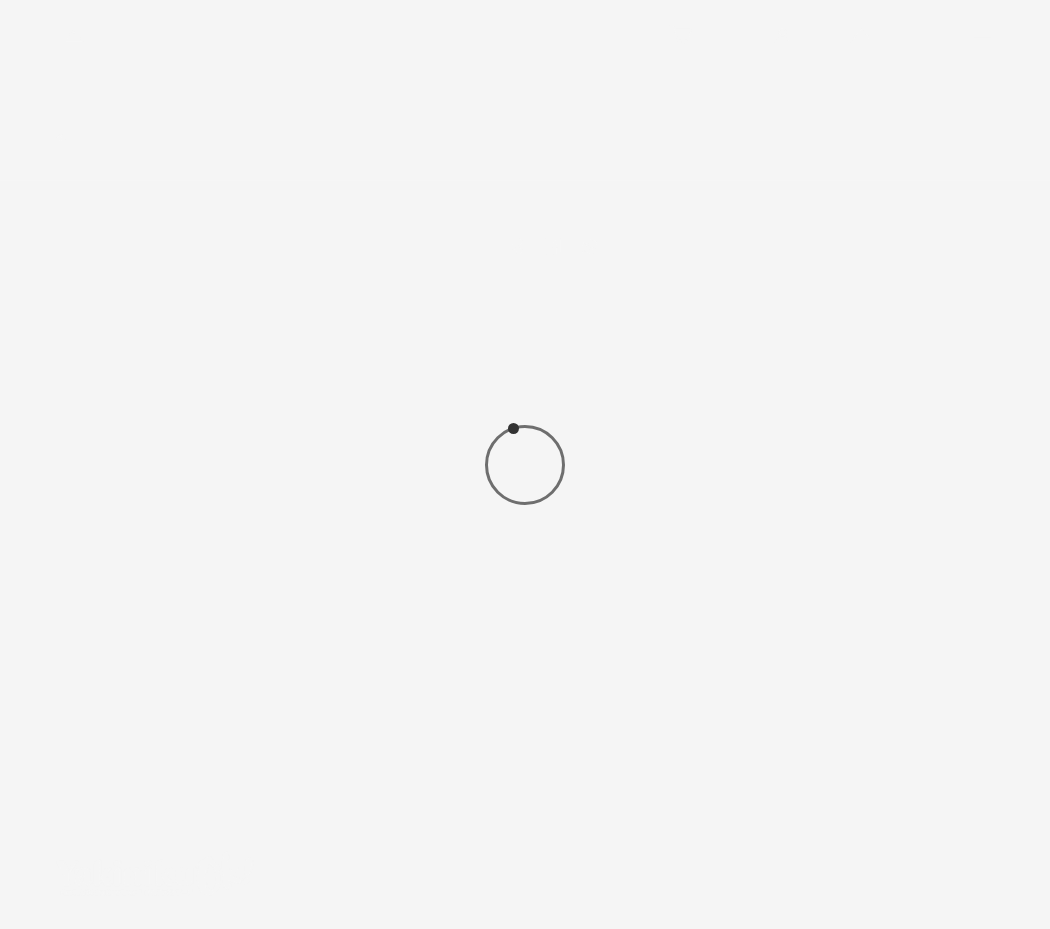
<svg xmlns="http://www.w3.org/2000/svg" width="1050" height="929">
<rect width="100%" height="100%" fill="#f5f5f5"/>
<image x="0" y="0" width="1050" height="75" href="media/1.png"/>
<image x="669" y="25" width="23" height="19" href="media/2.png"/>
<image x="774" y="28" width="17" height="16" href="media/3.png"/>
<image x="850" y="28" width="23" height="15" href="media/4.png"/>
<image x="64" y="29" width="20" height="14" href="media/5.png"/>
<image x="973" y="29" width="19" height="15" href="media/6.png"/>
<image x="0" y="75" width="1050" height="106" href="media/7.png"/>
<image x="55" y="134" width="11" height="9" href="media/8.png"/>
<image x="0" y="181" width="1047" height="654" href="media/9.png"/>
<image x="60" y="230" width="382" height="383" href="media/10.png"/>
<image x="507" y="238" width="16" height="17" href="media/11.png"/>
<image x="545" y="238" width="16" height="17" href="media/12.png"/>
<image x="582" y="238" width="16" height="17" href="media/13.png"/>
<circle cx="525" cy="465" r="38.5" fill="none" stroke="#6e6e6e" stroke-width="3"/>
<circle cx="513.5" cy="428.5" r="5.5" fill="#333"/>
<image x="56" y="851" width="198" height="45" href="media/14.png"/>
</svg>
